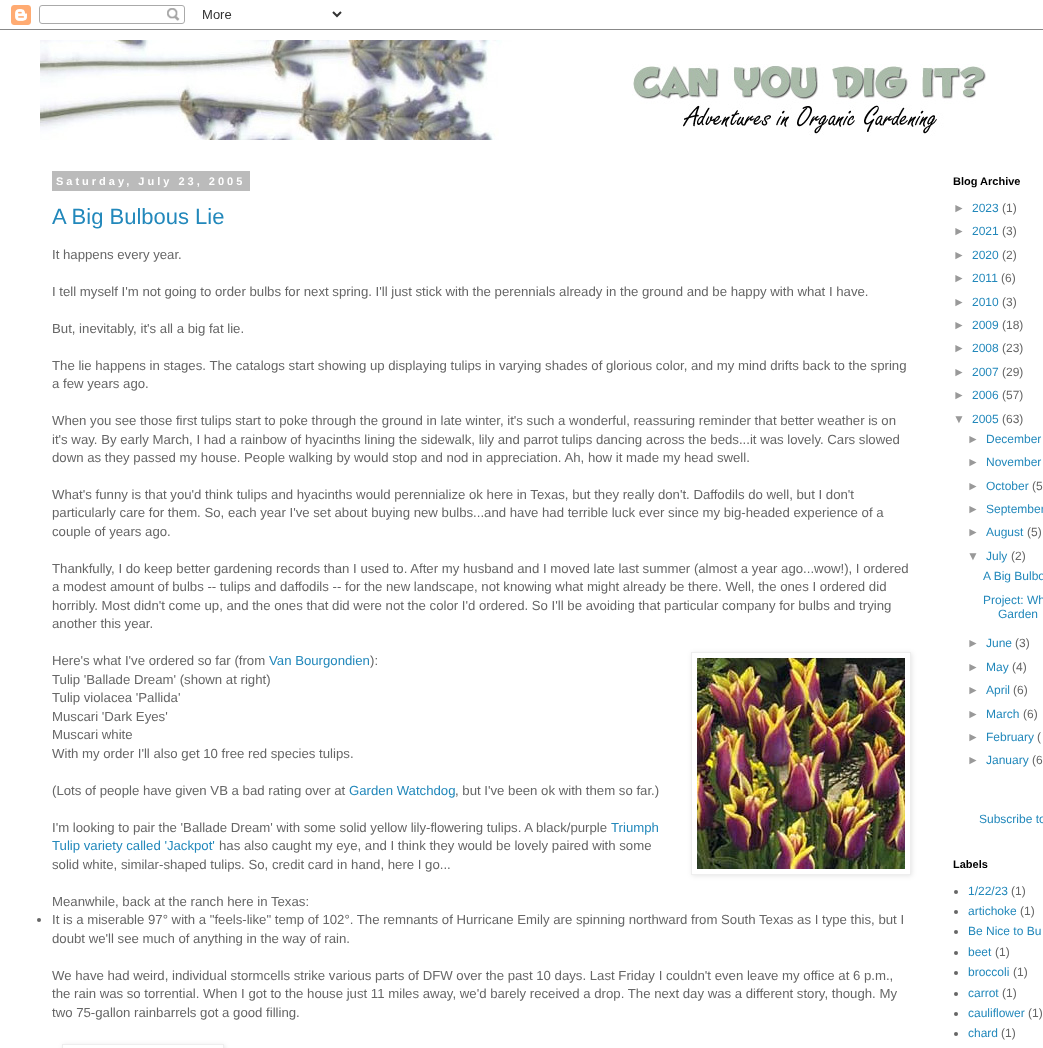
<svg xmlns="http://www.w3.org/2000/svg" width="1043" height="1048">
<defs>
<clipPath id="clip1"><path d="M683 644h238v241h-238zm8 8h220v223h-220z" clip-rule="evenodd"/></clipPath>
<clipPath id="clip2"><path d="M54 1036h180v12h-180zm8 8h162v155h-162z" clip-rule="evenodd"/></clipPath>
</defs>
<rect width="100%" height="100%" fill="#fff"/>
<image x="0" y="5" width="1043" height="25" href="media/1.png"/>
<image x="40" y="40" width="946" height="100" href="media/2.png"/>
<rect x="52" y="171" width="198" height="20" fill="#bbb"/>
<text x="56" y="185" style="font-family:Liberation Sans;font-size:11px;font-weight:bold;letter-spacing:3px;fill:#fff">Saturday, July 23, 2005</text>
<text x="52" y="224" style="font-family:Liberation Sans;font-size:22px;fill:#28b">A Big Bulbous Lie</text>
<text x="52" y="259" style="font-family:Liberation Sans;font-size:13.2px;fill:#666">It happens every year.</text>
<text x="52" y="296" style="font-family:Liberation Sans;font-size:13.2px;fill:#666">I tell myself I'm not going to order bulbs for next spring. I'll just stick with the perennials already in the ground and be happy with what I have.</text>
<text x="52" y="333" style="font-family:Liberation Sans;font-size:13.2px;fill:#666">But, inevitably, it's all a big fat lie.</text>
<text x="52" y="370" style="font-family:Liberation Sans;font-size:13.2px;fill:#666">The lie happens in stages. The catalogs start showing up displaying tulips in varying shades of glorious color, and my mind drifts back to the spring</text>
<text x="52" y="388" style="font-family:Liberation Sans;font-size:13.2px;fill:#666">a few years ago.</text>
<text x="52" y="425" style="font-family:Liberation Sans;font-size:13.2px;fill:#666">When you see those first tulips start to poke through the ground in late winter, it's such a wonderful, reassuring reminder that better weather is on</text>
<text x="52" y="444" style="font-family:Liberation Sans;font-size:13.2px;fill:#666">it's way. By early March, I had a rainbow of hyacinths lining the sidewalk, lily and parrot tulips dancing across the beds...it was lovely. Cars slowed</text>
<text x="52" y="462" style="font-family:Liberation Sans;font-size:13.2px;fill:#666">down as they passed my house. People walking by would stop and nod in appreciation. Ah, how it made my head swell.</text>
<text x="52" y="499" style="font-family:Liberation Sans;font-size:13.2px;fill:#666">What's funny is that you'd think tulips and hyacinths would perennialize ok here in Texas, but they really don't. Daffodils do well, but I don't</text>
<text x="52" y="517" style="font-family:Liberation Sans;font-size:13.2px;fill:#666">particularly care for them. So, each year I've set about buying new bulbs...and have had terrible luck ever since my big-headed experience of a</text>
<text x="52" y="536" style="font-family:Liberation Sans;font-size:13.2px;fill:#666">couple of years ago.</text>
<text x="52" y="573" style="font-family:Liberation Sans;font-size:13.2px;fill:#666">Thankfully, I do keep better gardening records than I used to. After my husband and I moved late last summer (almost a year ago...wow!), I ordered</text>
<text x="52" y="591" style="font-family:Liberation Sans;font-size:13.2px;fill:#666">a modest amount of bulbs -- tulips and daffodils -- for the new landscape, not knowing what might already be there. Well, the ones I ordered did</text>
<text x="52" y="610" style="font-family:Liberation Sans;font-size:13.2px;fill:#666">horribly. Most didn't come up, and the ones that did were not the color I'd ordered. So I'll be avoiding that particular company for bulbs and trying</text>
<text x="52" y="628" style="font-family:Liberation Sans;font-size:13.2px;fill:#666">another this year.</text>
<text x="52" y="665" style="font-family:Liberation Sans;font-size:13.2px;fill:#666">Here's what I've ordered so far (from</text>
<text x="269" y="665" style="font-family:Liberation Sans;font-size:13.2px;fill:#28b">Van Bourgondien</text>
<text x="370" y="665" style="font-family:Liberation Sans;font-size:13.2px;fill:#666">):</text>
<g clip-path="url(#clip1)">
<rect x="692" y="653" width="220" height="223" fill="#0000001a" filter="blur(2.5px)"/>
</g>
<rect x="691.5" y="652.5" width="219" height="222" fill="none" stroke="#eee"/>
<image x="697" y="658" width="208" height="211" href="media/3.png"/>
<text x="52" y="684" style="font-family:Liberation Sans;font-size:13.2px;fill:#666">Tulip 'Ballade Dream' (shown at right)</text>
<text x="52" y="702" style="font-family:Liberation Sans;font-size:13.2px;fill:#666">Tulip violacea 'Pallida'</text>
<text x="52" y="721" style="font-family:Liberation Sans;font-size:13.2px;fill:#666">Muscari 'Dark Eyes'</text>
<text x="52" y="739" style="font-family:Liberation Sans;font-size:13.2px;fill:#666">Muscari white</text>
<text x="52" y="758" style="font-family:Liberation Sans;font-size:13.2px;fill:#666">With my order I'll also get 10 free red species tulips.</text>
<text x="52" y="795" style="font-family:Liberation Sans;font-size:13.2px;fill:#666">(Lots of people have given VB a bad rating over at</text>
<text x="349" y="795" style="font-family:Liberation Sans;font-size:13.2px;fill:#28b">Garden Watchdog</text>
<text x="455" y="795" style="font-family:Liberation Sans;font-size:13.2px;fill:#666">, but I've been ok with them so far.)</text>
<text x="52" y="832" style="font-family:Liberation Sans;font-size:13.2px;fill:#666">I'm looking to pair the 'Ballade Dream' with some solid yellow lily-flowering tulips. A black/purple</text>
<text x="611" y="832" style="font-family:Liberation Sans;font-size:13.2px;fill:#28b">Triumph</text>
<text x="52" y="850" style="font-family:Liberation Sans;font-size:13.2px;fill:#28b">Tulip variety called 'Jackpot'</text>
<text x="219" y="850" style="font-family:Liberation Sans;font-size:13.2px;fill:#666">has also caught my eye, and I think they would be lovely paired with some</text>
<text x="52" y="869" style="font-family:Liberation Sans;font-size:13.2px;fill:#666">solid white, similar-shaped tulips. So, credit card in hand, here I go...</text>
<text x="52" y="906" style="font-family:Liberation Sans;font-size:13.2px;fill:#666">Meanwhile, back at the ranch here in Texas:</text>
<circle cx="39" cy="920" r="2" fill="#666"/>
<text x="52" y="924" style="font-family:Liberation Sans;font-size:13.2px;fill:#666">It is a miserable 97° with a "feels-like" temp of 102°. The remnants of Hurricane Emily are spinning northward from South Texas as I type this, but I</text>
<text x="52" y="943" style="font-family:Liberation Sans;font-size:13.2px;fill:#666">doubt we'll see much of anything in the way of rain.</text>
<text x="52" y="980" style="font-family:Liberation Sans;font-size:13.2px;fill:#666">We have had weird, individual stormcells strike various parts of DFW over the past 10 days. Last Friday I couldn't even leave my office at 6 p.m.,</text>
<text x="52" y="998" style="font-family:Liberation Sans;font-size:13.2px;fill:#666">the rain was so torrential. When I got to the house just 11 miles away, we'd barely received a drop. The next day was a different story, though. My</text>
<text x="52" y="1017" style="font-family:Liberation Sans;font-size:13.2px;fill:#666">two 75-gallon rainbarrels got a good filling.</text>
<g clip-path="url(#clip2)">
<rect x="63" y="1045" width="162" height="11" fill="#0000001a" filter="blur(2.5px)"/>
</g>
<rect x="62.5" y="1044.5" width="161" height="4" fill="none" stroke="#eee"/>
<text x="953" y="185" style="font-family:Liberation Sans;font-size:11px;font-weight:bold;fill:#000">Blog Archive</text>
<text x="953" y="212" style="font-family:Liberation Sans;font-size:12px;fill:#999">►</text>
<text x="972" y="212" style="font-family:Liberation Sans;font-size:12px;fill:#28b">2023</text>
<text x="1002" y="212" style="font-family:Liberation Sans;font-size:12px;fill:#666">(1)</text>
<text x="953" y="235" style="font-family:Liberation Sans;font-size:12px;fill:#999">►</text>
<text x="972" y="235" style="font-family:Liberation Sans;font-size:12px;fill:#28b">2021</text>
<text x="1002" y="235" style="font-family:Liberation Sans;font-size:12px;fill:#666">(3)</text>
<text x="953" y="259" style="font-family:Liberation Sans;font-size:12px;fill:#999">►</text>
<text x="972" y="259" style="font-family:Liberation Sans;font-size:12px;fill:#28b">2020</text>
<text x="1002" y="259" style="font-family:Liberation Sans;font-size:12px;fill:#666">(2)</text>
<text x="953" y="282" style="font-family:Liberation Sans;font-size:12px;fill:#999">►</text>
<text x="972" y="282" style="font-family:Liberation Sans;font-size:12px;fill:#28b">2011</text>
<text x="1001" y="282" style="font-family:Liberation Sans;font-size:12px;fill:#666">(6)</text>
<text x="953" y="306" style="font-family:Liberation Sans;font-size:12px;fill:#999">►</text>
<text x="972" y="306" style="font-family:Liberation Sans;font-size:12px;fill:#28b">2010</text>
<text x="1002" y="306" style="font-family:Liberation Sans;font-size:12px;fill:#666">(3)</text>
<text x="953" y="329" style="font-family:Liberation Sans;font-size:12px;fill:#999">►</text>
<text x="972" y="329" style="font-family:Liberation Sans;font-size:12px;fill:#28b">2009</text>
<text x="1002" y="329" style="font-family:Liberation Sans;font-size:12px;fill:#666">(18)</text>
<text x="953" y="352" style="font-family:Liberation Sans;font-size:12px;fill:#999">►</text>
<text x="972" y="352" style="font-family:Liberation Sans;font-size:12px;fill:#28b">2008</text>
<text x="1002" y="352" style="font-family:Liberation Sans;font-size:12px;fill:#666">(23)</text>
<text x="953" y="376" style="font-family:Liberation Sans;font-size:12px;fill:#999">►</text>
<text x="972" y="376" style="font-family:Liberation Sans;font-size:12px;fill:#28b">2007</text>
<text x="1002" y="376" style="font-family:Liberation Sans;font-size:12px;fill:#666">(29)</text>
<text x="953" y="399" style="font-family:Liberation Sans;font-size:12px;fill:#999">►</text>
<text x="972" y="399" style="font-family:Liberation Sans;font-size:12px;fill:#28b">2006</text>
<text x="1002" y="399" style="font-family:Liberation Sans;font-size:12px;fill:#666">(57)</text>
<text x="953" y="423" style="font-family:Liberation Sans;font-size:12px;fill:#999">▼</text>
<text x="972" y="423" style="font-family:Liberation Sans;font-size:12px;fill:#28b">2005</text>
<text x="1002" y="423" style="font-family:Liberation Sans;font-size:12px;fill:#666">(63)</text>
<text x="967" y="443" style="font-family:Liberation Sans;font-size:12px;fill:#999">►</text>
<text x="986" y="443" style="font-family:Liberation Sans;font-size:12px;fill:#28b">December</text>
<text x="967" y="466" style="font-family:Liberation Sans;font-size:12px;fill:#999">►</text>
<text x="986" y="466" style="font-family:Liberation Sans;font-size:12px;fill:#28b">November</text>
<text x="967" y="490" style="font-family:Liberation Sans;font-size:12px;fill:#999">►</text>
<text x="986" y="490" style="font-family:Liberation Sans;font-size:12px;fill:#28b">October</text>
<text x="1032" y="490" style="font-family:Liberation Sans;font-size:12px;fill:#666">(5</text>
<text x="967" y="513" style="font-family:Liberation Sans;font-size:12px;fill:#999">►</text>
<text x="986" y="513" style="font-family:Liberation Sans;font-size:12px;fill:#28b">September</text>
<text x="967" y="536" style="font-family:Liberation Sans;font-size:12px;fill:#999">►</text>
<text x="986" y="536" style="font-family:Liberation Sans;font-size:12px;fill:#28b">August</text>
<text x="1027" y="536" style="font-family:Liberation Sans;font-size:12px;fill:#666">(5)</text>
<text x="967" y="560" style="font-family:Liberation Sans;font-size:12px;fill:#999">▼</text>
<text x="986" y="560" style="font-family:Liberation Sans;font-size:12px;fill:#28b">July</text>
<text x="1011" y="560" style="font-family:Liberation Sans;font-size:12px;fill:#666">(2)</text>
<text x="983" y="580" style="font-family:Liberation Sans;font-size:12px;fill:#28b">A Big Bulbo</text>
<text x="983" y="604" style="font-family:Liberation Sans;font-size:12px;fill:#28b">Project: Wh</text>
<text x="998" y="618" style="font-family:Liberation Sans;font-size:12px;fill:#28b">Garden</text>
<text x="967" y="647" style="font-family:Liberation Sans;font-size:12px;fill:#999">►</text>
<text x="986" y="647" style="font-family:Liberation Sans;font-size:12px;fill:#28b">June</text>
<text x="1015" y="647" style="font-family:Liberation Sans;font-size:12px;fill:#666">(3)</text>
<text x="967" y="671" style="font-family:Liberation Sans;font-size:12px;fill:#999">►</text>
<text x="986" y="671" style="font-family:Liberation Sans;font-size:12px;fill:#28b">May</text>
<text x="1012" y="671" style="font-family:Liberation Sans;font-size:12px;fill:#666">(4)</text>
<text x="967" y="694" style="font-family:Liberation Sans;font-size:12px;fill:#999">►</text>
<text x="986" y="694" style="font-family:Liberation Sans;font-size:12px;fill:#28b">April</text>
<text x="1013" y="694" style="font-family:Liberation Sans;font-size:12px;fill:#666">(6)</text>
<text x="967" y="718" style="font-family:Liberation Sans;font-size:12px;fill:#999">►</text>
<text x="986" y="718" style="font-family:Liberation Sans;font-size:12px;fill:#28b">March</text>
<text x="1023" y="718" style="font-family:Liberation Sans;font-size:12px;fill:#666">(6)</text>
<text x="967" y="741" style="font-family:Liberation Sans;font-size:12px;fill:#999">►</text>
<text x="986" y="741" style="font-family:Liberation Sans;font-size:12px;fill:#28b">February</text>
<text x="1037" y="741" style="font-family:Liberation Sans;font-size:12px;fill:#666">(</text>
<text x="967" y="764" style="font-family:Liberation Sans;font-size:12px;fill:#999">►</text>
<text x="986" y="764" style="font-family:Liberation Sans;font-size:12px;fill:#28b">January</text>
<text x="1032" y="764" style="font-family:Liberation Sans;font-size:12px;fill:#666">(6</text>
<text x="979" y="823" style="font-family:Liberation Sans;font-size:12px;fill:#28b">Subscribe to</text>
<text x="953" y="868" style="font-family:Liberation Sans;font-size:11px;font-weight:bold;fill:#000">Labels</text>
<circle cx="956" cy="892" r="2" fill="#666"/>
<text x="968" y="895" style="font-family:Liberation Sans;font-size:12px;fill:#28b">1/22/23</text>
<text x="1011" y="895" style="font-family:Liberation Sans;font-size:12px;fill:#666">(1)</text>
<circle cx="956" cy="912" r="2" fill="#666"/>
<text x="968" y="915" style="font-family:Liberation Sans;font-size:12px;fill:#28b">artichoke</text>
<text x="1020" y="915" style="font-family:Liberation Sans;font-size:12px;fill:#666">(1)</text>
<circle cx="956" cy="932" r="2" fill="#666"/>
<text x="968" y="935" style="font-family:Liberation Sans;font-size:12px;fill:#28b">Be Nice to Bu</text>
<circle cx="956" cy="953" r="2" fill="#666"/>
<text x="968" y="956" style="font-family:Liberation Sans;font-size:12px;fill:#28b">beet</text>
<text x="995" y="956" style="font-family:Liberation Sans;font-size:12px;fill:#666">(1)</text>
<circle cx="956" cy="973" r="2" fill="#666"/>
<text x="968" y="976" style="font-family:Liberation Sans;font-size:12px;fill:#28b">broccoli</text>
<text x="1013" y="976" style="font-family:Liberation Sans;font-size:12px;fill:#666">(1)</text>
<circle cx="956" cy="994" r="2" fill="#666"/>
<text x="968" y="997" style="font-family:Liberation Sans;font-size:12px;fill:#28b">carrot</text>
<text x="1002" y="997" style="font-family:Liberation Sans;font-size:12px;fill:#666">(1)</text>
<circle cx="956" cy="1014" r="2" fill="#666"/>
<text x="968" y="1017" style="font-family:Liberation Sans;font-size:12px;fill:#28b">cauliflower</text>
<text x="1028" y="1017" style="font-family:Liberation Sans;font-size:12px;fill:#666">(1)</text>
<circle cx="956" cy="1034" r="2" fill="#666"/>
<text x="968" y="1037" style="font-family:Liberation Sans;font-size:12px;fill:#28b">chard</text>
<text x="1001" y="1037" style="font-family:Liberation Sans;font-size:12px;fill:#666">(1)</text>
</svg>
